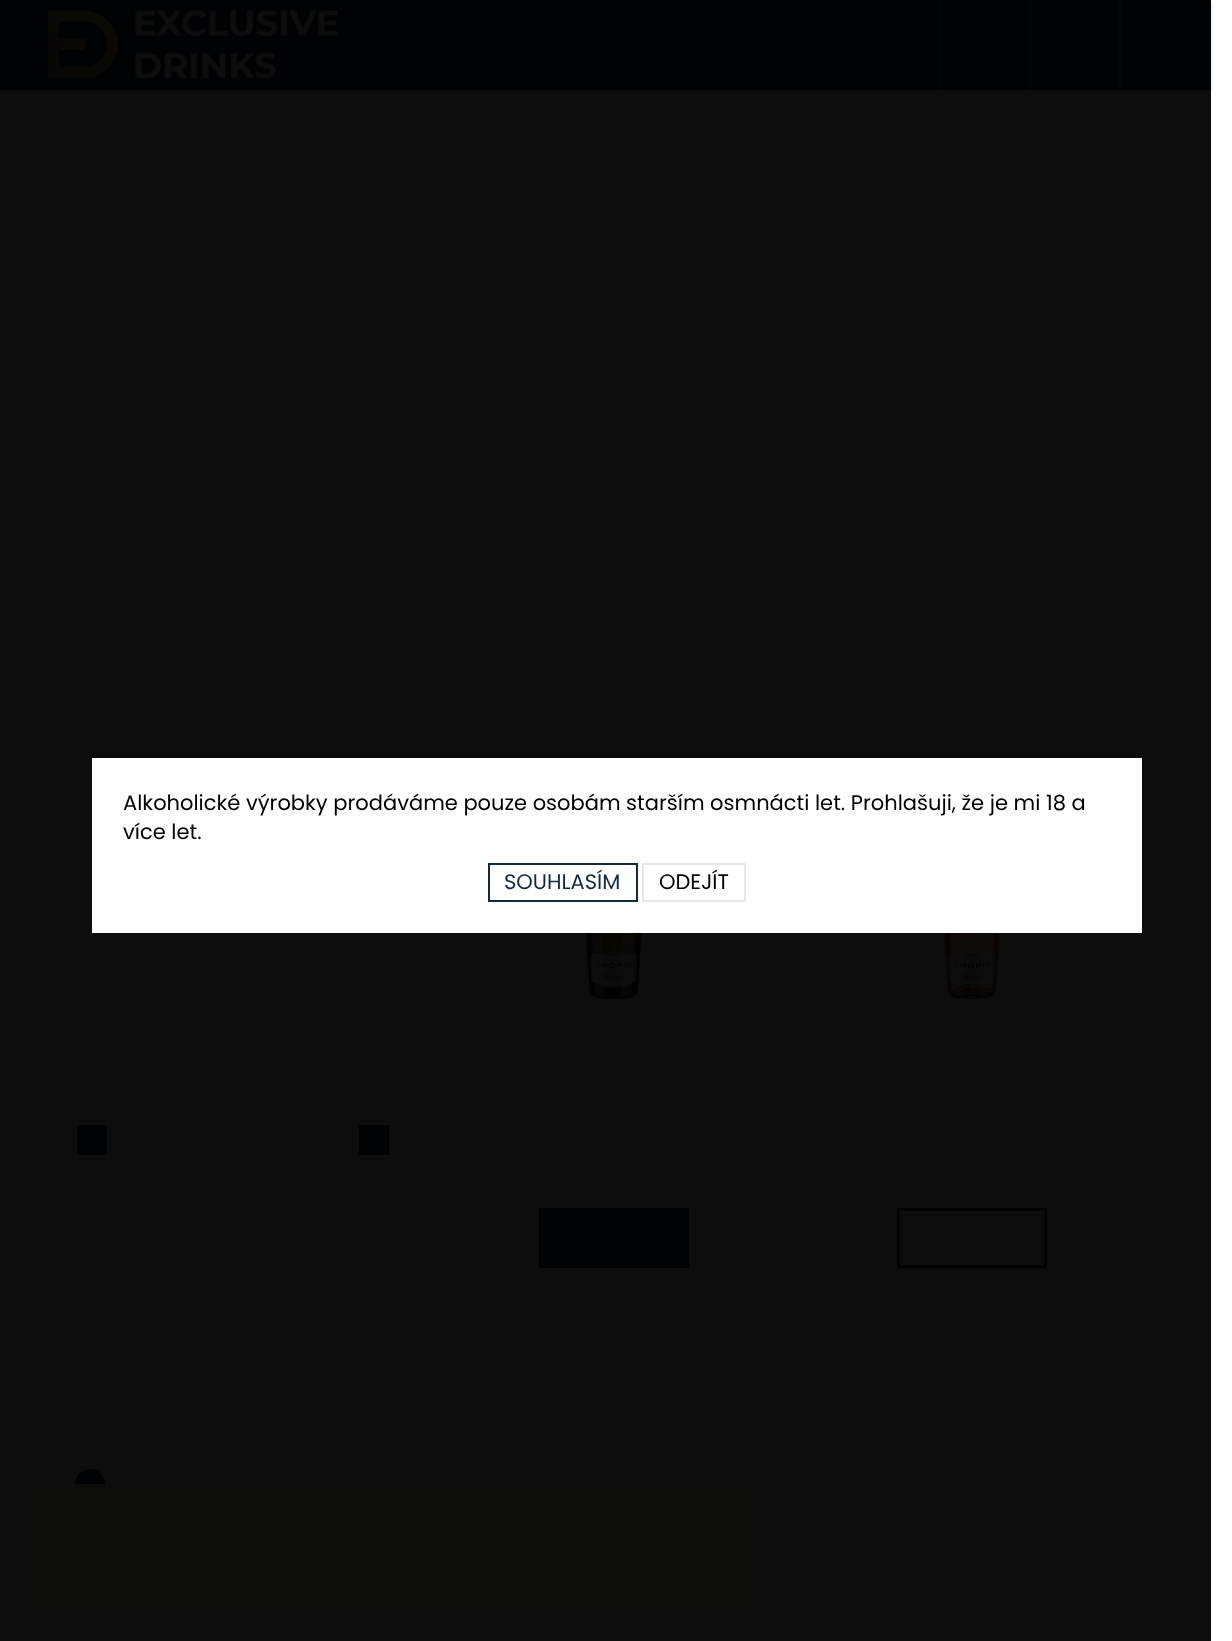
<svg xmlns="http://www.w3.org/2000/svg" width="1232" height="1641">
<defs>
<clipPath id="clip1"><path d="M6 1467h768v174h-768zm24 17h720v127h-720z" clip-rule="evenodd"/></clipPath>
</defs>
<rect width="100%" height="100%" fill="#fff"/>
<rect y="2" width="1211" height="90" fill="#00000029" filter="blur(1.5px)"/>
<rect width="1209" height="90" fill="#122a41"/>
<image x="45" y="7" width="300" height="75" href="media/1.png"/>
<rect x="1209" width="2" height="90" fill="#596a7a"/>
<rect x="939" width="2" height="90" fill="#596a7a"/>
<rect x="1029" width="2" height="90" fill="#596a7a"/>
<rect x="1119" width="2" height="90" fill="#596a7a"/>
<rect x="75" y="983" width="315" height="2" fill="#e6e6e6"/>
<rect x="76" y="1132" width="313" height="13" fill="none" stroke="#e7e7e7" stroke-width="2"/>
<rect x="77" y="1125" width="30" height="30" fill="#122a41"/>
<rect x="107" y="1133" width="252" height="15" fill="#e7e7e7"/>
<rect x="359" y="1125" width="30" height="30" fill="#122a41"/>
<rect x="76" y="1233" width="19" height="19" fill="none" stroke="#e6e6e6" stroke-width="2"/>
<rect x="75" y="1352" width="315" height="2" fill="#e6e6e6"/>
<circle cx="90" cy="1484" r="15" fill="#122a41"/>
<circle cx="90" cy="1581" r="15" fill="#122a41"/>
<rect x="450" y="732" width="686" height="2" fill="#e7e7e7"/>
<rect x="465" y="686" width="137" height="2" fill="#e7e7e7"/>
<rect x="600" y="686" width="2" height="48" fill="#e7e7e7"/>
<rect x="465" y="732" width="137" height="2" fill="#fff"/>
<rect x="465" y="686" width="2" height="48" fill="#e7e7e7"/>
<rect x="618" y="687" width="118" height="46" fill="#f5f5f5" stroke="#e7e7e7" stroke-width="2"/>
<rect x="753" y="687" width="190" height="46" fill="#f5f5f5" stroke="#e7e7e7" stroke-width="2"/>
<rect x="960" y="687" width="131" height="46" fill="#f5f5f5" stroke="#e7e7e7" stroke-width="2"/>
<rect x="456" y="784" width="316" height="600" fill="none" stroke="#e6e6e6" stroke-width="2"/>
<image x="456" y="933" width="315" height="87" href="media/2.png"/>
<rect x="539" y="1208" width="150" height="60" fill="#122a41"/>
<rect x="814" y="784" width="316" height="600" fill="none" stroke="#e6e6e6" stroke-width="2"/>
<image x="814" y="933" width="316" height="87" href="media/3.png"/>
<rect x="898.5" y="1209.5" width="147" height="57" fill="none" stroke="#122a41" stroke-width="3"/>
<g clip-path="url(#clip1)">
<rect x="30" y="1491" width="720" height="128" fill="#00000024" filter="blur(7.5px)"/>
</g>
<rect x="30" y="1484" width="720" height="127" fill="#fdf3dae6"/>
<rect width="1211" height="1641" fill="#000000f2"/>
<rect x="92" y="758" width="1050" height="175" fill="#fff"/>
<text x="123" y="810" style="font-family:Poppins;font-size:21px;fill:#000">Alkoholické výrobky prodáváme pouze osobám starším osmnácti let. Prohlašuji, že je mi 18 a</text>
<text x="123" y="839" style="font-family:Poppins;font-size:21px;fill:#000">více let.</text>
<rect x="489" y="864" width="148" height="37" fill="none" stroke="#122a41" stroke-width="2"/>
<text x="504" y="889" style="font-family:Poppins;font-size:21px;fill:#122a41">SOUHLASÍM</text>
<rect x="643" y="864" width="102" height="37" fill="none" stroke="#e6e6e6" stroke-width="2"/>
<text x="659" y="889" style="font-family:Poppins;font-size:21px;fill:#000">ODEJÍT</text>
</svg>
